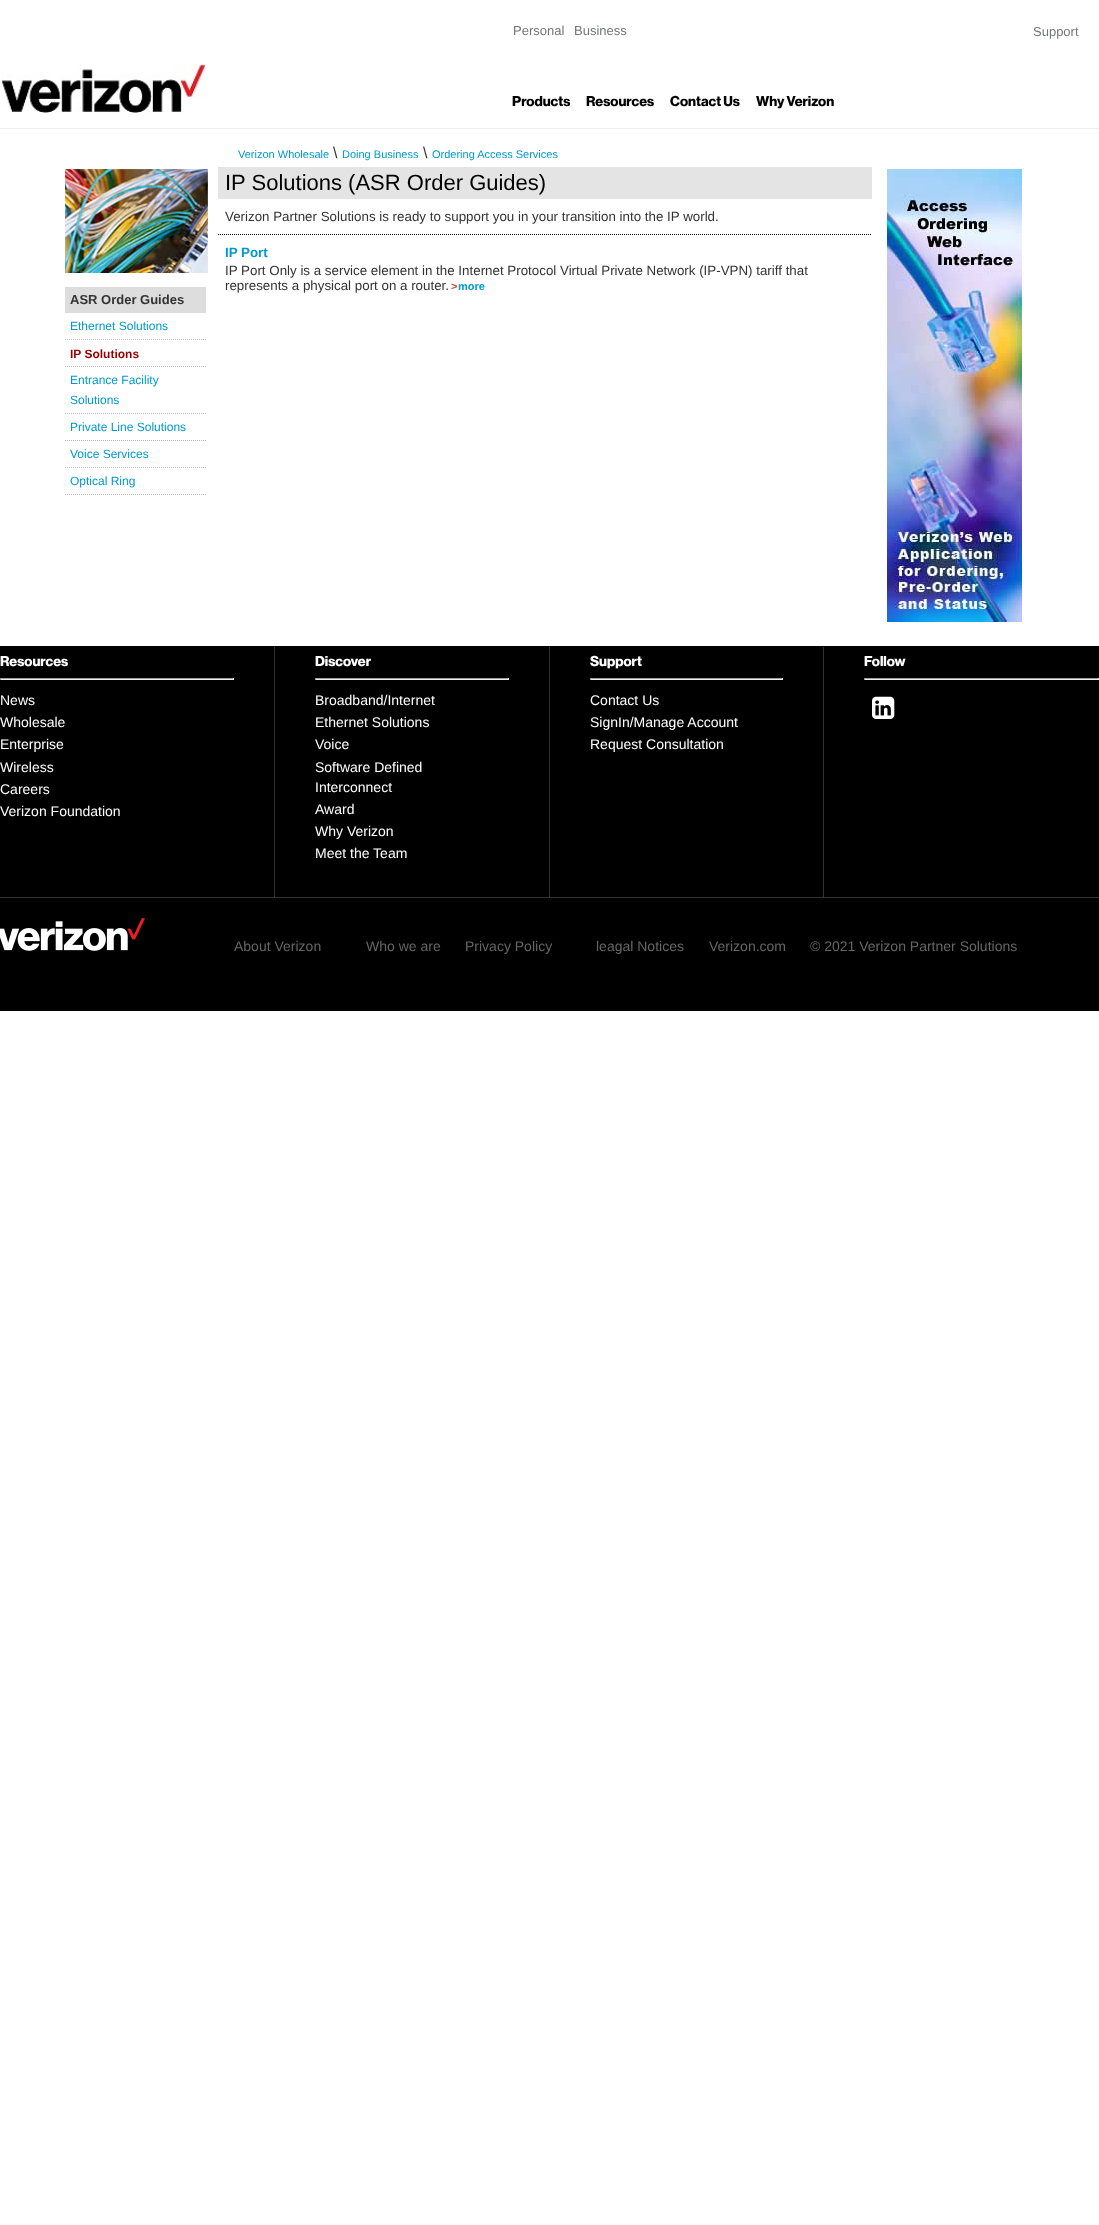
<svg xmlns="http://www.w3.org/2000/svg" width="1099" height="2225">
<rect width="100%" height="100%" fill="#fff"/>
<rect y="128" width="1099" height="1" fill="#eee"/>
<text x="513" y="35" style="font-family:Liberation Sans;font-size:13px;fill:#747676">Personal</text>
<text x="574" y="35" style="font-family:Liberation Sans;font-size:13px;fill:#747676">Business</text>
<text x="1033" y="36" style="font-family:Liberation Sans;font-size:13px;fill:#747676">Support</text>
<image x="1" y="64" width="205" height="49" href="media/1.png"/>
<text x="512" y="106" style="font-family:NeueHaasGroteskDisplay;font-size:14px;font-weight:bold;fill:#000">Products</text>
<text x="586" y="106" style="font-family:NeueHaasGroteskDisplay;font-size:14px;font-weight:bold;fill:#000">Resources</text>
<text x="670" y="106" style="font-family:NeueHaasGroteskDisplay;font-size:14px;font-weight:bold;fill:#000">Contact Us</text>
<text x="756" y="106" style="font-family:NeueHaasGroteskDisplay;font-size:14px;font-weight:bold;fill:#000">Why Verizon</text>
<image x="65" y="169" width="143" height="104" href="media/2.png"/>
<rect x="65" y="287" width="141" height="26" fill="#ddd"/>
<text x="70" y="304" style="font-family:Liberation Sans;font-size:13px;font-weight:bold;fill:#333">ASR Order Guides</text>
<path d="M65 339.5h141" fill="none" stroke="#bbb" stroke-dasharray="1 1"/>
<text x="70" y="330" style="font-family:Liberation Sans;font-size:12px;fill:#09c">Ethernet Solutions</text>
<path d="M65 366.5h141" fill="none" stroke="#bbb" stroke-dasharray="1 1"/>
<text x="70" y="358" style="font-family:Liberation Sans;font-size:12px;font-weight:bold;fill:#980000">IP Solutions</text>
<path d="M65 413.5h141" fill="none" stroke="#bbb" stroke-dasharray="1 1"/>
<text x="70" y="384" style="font-family:Liberation Sans;font-size:12px;fill:#09c">Entrance Facility</text>
<text x="70" y="404" style="font-family:Liberation Sans;font-size:12px;fill:#09c">Solutions</text>
<path d="M65 440.5h141" fill="none" stroke="#bbb" stroke-dasharray="1 1"/>
<text x="70" y="431" style="font-family:Liberation Sans;font-size:12px;fill:#09c">Private Line Solutions</text>
<path d="M65 467.5h141" fill="none" stroke="#bbb" stroke-dasharray="1 1"/>
<text x="70" y="458" style="font-family:Liberation Sans;font-size:12px;fill:#09c">Voice Services</text>
<path d="M65 494.5h141" fill="none" stroke="#bbb" stroke-dasharray="1 1"/>
<text x="70" y="485" style="font-family:Liberation Sans;font-size:12px;fill:#09c">Optical Ring</text>
<text x="238" y="158" style="font-family:Liberation Sans;font-size:11px;fill:#09c">Verizon Wholesale</text>
<text x="333" y="158" style="font-family:Liberation Sans;font-size:16px;fill:#333">\</text>
<text x="342" y="158" style="font-family:Liberation Sans;font-size:11px;fill:#09c">Doing Business</text>
<text x="423" y="158" style="font-family:Liberation Sans;font-size:16px;fill:#333">\</text>
<text x="432" y="158" style="font-family:Liberation Sans;font-size:11px;fill:#09c">Ordering Access Services</text>
<path d="M218 234.5h654" fill="none" stroke="#000" stroke-dasharray="1 1"/>
<rect x="218" y="167" width="654" height="32" fill="#e4e4e4"/>
<text x="225" y="190" style="font-family:Liberation Sans;font-size:22px;fill:#000">IP Solutions (ASR Order Guides)</text>
<text x="225" y="221" style="font-family:Liberation Sans;font-size:13.35px;fill:#333">Verizon Partner Solutions is ready to support you in your transition into the IP world.</text>
<text x="225" y="257" style="font-family:Liberation Sans;font-size:13.35px;font-weight:bold;fill:#09c">IP Port</text>
<text x="225" y="275" style="font-family:Liberation Sans;font-size:13.35px;fill:#333">IP Port Only is a service element in the Internet Protocol Virtual Private Network (IP-VPN) tariff that</text>
<text x="225" y="290" style="font-family:Liberation Sans;font-size:13.35px;fill:#333">represents a physical port on a router.</text>
<text x="451" y="290" style="font-family:Liberation Sans;font-size:11px;font-weight:bold;fill:#d24040">&gt;</text>
<text x="458" y="290" style="font-family:Liberation Sans;font-size:11px;font-weight:bold;fill:#09c">more</text>
<image x="887" y="169" width="135" height="453" href="media/3.png"/>
<rect y="646" width="1099" height="251" fill="#000"/>
<rect y="897" width="1099" height="1" fill="#323232"/>
<rect x="274" y="647" width="1" height="250" fill="#323232"/>
<text x="0" y="666" style="font-family:NeueHaasGroteskDisplay;font-size:14px;font-weight:bold;fill:#fff">Resources</text>
<rect y="678" width="234" height="1" fill="#9f9f9f"/>
<rect x="233" y="678" width="1" height="2" fill="#eee"/>
<rect y="679" width="234" height="1" fill="#eee"/>
<rect y="678" width="1" height="2" fill="#9f9f9f"/>
<text x="0" y="705" style="font-family:Liberation Sans;font-size:14px;fill:#fff">News</text>
<text x="0" y="727" style="font-family:Liberation Sans;font-size:14px;fill:#fff">Wholesale</text>
<text x="0" y="749" style="font-family:Liberation Sans;font-size:14px;fill:#fff">Enterprise</text>
<text x="0" y="772" style="font-family:Liberation Sans;font-size:14px;fill:#fff">Wireless</text>
<text x="0" y="794" style="font-family:Liberation Sans;font-size:14px;fill:#fff">Careers</text>
<text x="0" y="816" style="font-family:Liberation Sans;font-size:14px;fill:#fff">Verizon Foundation</text>
<rect x="549" y="647" width="1" height="250" fill="#323232"/>
<text x="315" y="666" style="font-family:NeueHaasGroteskDisplay;font-size:14px;font-weight:bold;fill:#fff">Discover</text>
<rect x="315" y="678" width="194" height="1" fill="#9f9f9f"/>
<rect x="508" y="678" width="1" height="2" fill="#eee"/>
<rect x="315" y="679" width="194" height="1" fill="#eee"/>
<rect x="315" y="678" width="1" height="2" fill="#9f9f9f"/>
<text x="315" y="705" style="font-family:Liberation Sans;font-size:14px;fill:#fff">Broadband/Internet</text>
<text x="315" y="727" style="font-family:Liberation Sans;font-size:14px;fill:#fff">Ethernet Solutions</text>
<text x="315" y="749" style="font-family:Liberation Sans;font-size:14px;fill:#fff">Voice</text>
<text x="315" y="772" style="font-family:Liberation Sans;font-size:14px;fill:#fff">Software Defined</text>
<text x="315" y="792" style="font-family:Liberation Sans;font-size:14px;fill:#fff">Interconnect</text>
<text x="315" y="814" style="font-family:Liberation Sans;font-size:14px;fill:#fff">Award</text>
<text x="315" y="836" style="font-family:Liberation Sans;font-size:14px;fill:#fff">Why Verizon</text>
<text x="315" y="858" style="font-family:Liberation Sans;font-size:14px;fill:#fff">Meet the Team</text>
<rect x="823" y="647" width="1" height="250" fill="#323232"/>
<text x="590" y="666" style="font-family:NeueHaasGroteskDisplay;font-size:14px;font-weight:bold;fill:#fff">Support</text>
<rect x="590" y="678" width="193" height="1" fill="#9f9f9f"/>
<rect x="782" y="678" width="1" height="2" fill="#eee"/>
<rect x="590" y="679" width="193" height="1" fill="#eee"/>
<rect x="590" y="678" width="1" height="2" fill="#9f9f9f"/>
<text x="590" y="705" style="font-family:Liberation Sans;font-size:14px;fill:#fff">Contact Us</text>
<text x="590" y="727" style="font-family:Liberation Sans;font-size:14px;fill:#fff">SignIn/Manage Account</text>
<text x="590" y="749" style="font-family:Liberation Sans;font-size:14px;fill:#fff">Request Consultation</text>
<text x="864" y="666" style="font-family:NeueHaasGroteskDisplay;font-size:14px;font-weight:bold;fill:#fff">Follow</text>
<rect x="864" y="678" width="235" height="1" fill="#9f9f9f"/>
<rect x="1098" y="678" width="1" height="2" fill="#eee"/>
<rect x="864" y="679" width="235" height="1" fill="#eee"/>
<rect x="864" y="678" width="1" height="2" fill="#9f9f9f"/>
<image x="872" y="696" width="23" height="23" href="media/4.png"/>
<rect y="898" width="1099" height="113" fill="#000"/>
<image x="0" y="918" width="145" height="33" href="media/5.png"/>
<text x="234" y="951" style="font-family:Liberation Sans;font-size:14px;fill:#666">About Verizon</text>
<text x="366" y="951" style="font-family:Liberation Sans;font-size:14px;fill:#666">Who we are</text>
<text x="465" y="951" style="font-family:Liberation Sans;font-size:14px;fill:#666">Privacy Policy</text>
<text x="596" y="951" style="font-family:Liberation Sans;font-size:14px;fill:#666">leagal Notices</text>
<text x="709" y="951" style="font-family:Liberation Sans;font-size:14px;fill:#666">Verizon.com</text>
<text x="810" y="951" style="font-family:Liberation Sans;font-size:14px;fill:#666">© 2021 Verizon Partner Solutions</text>
</svg>
